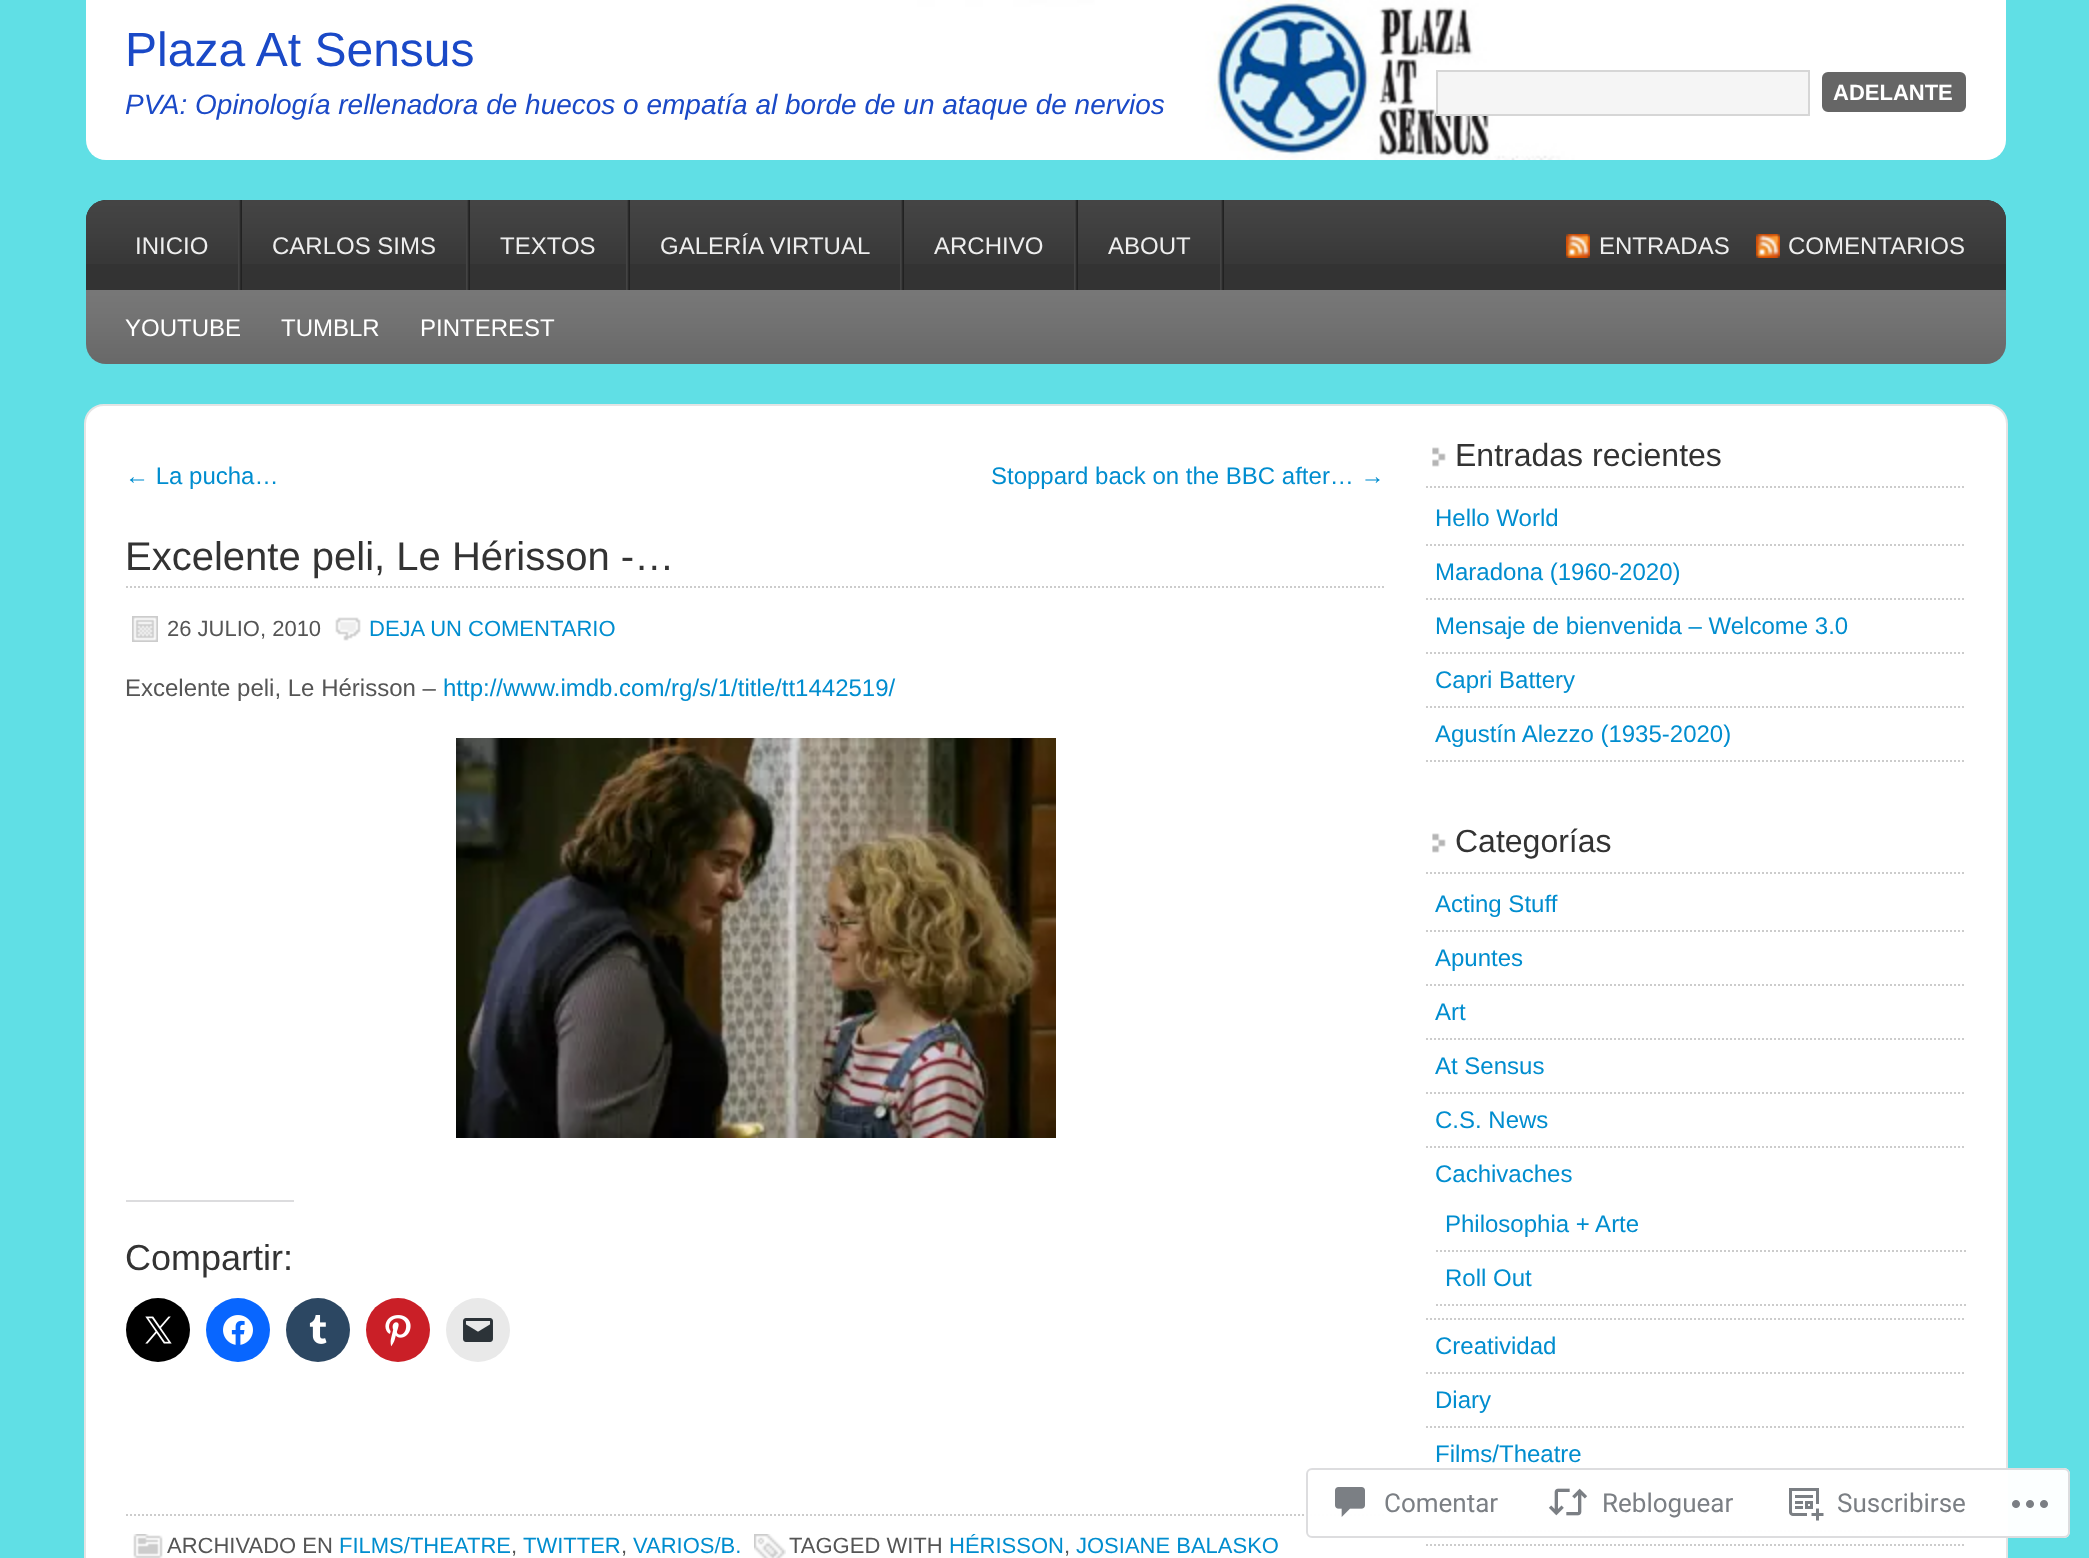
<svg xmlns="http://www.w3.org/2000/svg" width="2089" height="1558">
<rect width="100%" height="100%" fill="#60dfe5"/>
<image x="86" y="0" width="1920" height="160" href="media/1.png"/>
<text x="125" y="66" style="font-family:Liberation Sans;font-size:48px;fill:#1a49c7">Plaza At Sensus</text>
<text x="125" y="114" style="font-family:Liberation Sans;font-size:28px;font-style:italic;fill:#1a49c7">PVA: Opinología rellenadora de huecos o empatía al borde de un ataque de nervios</text>
<rect x="1437" y="71" width="372" height="44" fill="#f5f5f5" stroke="#d6d6d6" stroke-width="2"/>
<rect x="1823" y="73" width="142" height="38" rx="5" fill="#666" stroke="#666" stroke-width="2"/>
<text x="1833" y="100" style="font-family:Liberation Sans;font-size:22px;font-weight:bold;fill:#fff">ADELANTE</text>
<path d="M106 200h1880c11 0 20 9 20 20v70h-1920v-70c0-11 9-20 20-20z" fill="#333"/>
<image x="86" y="200" width="1920" height="64" href="media/2.png"/>
<image x="238" y="200" width="4" height="90" href="media/3.png"/>
<text x="135" y="254" style="font-family:Liberation Sans;font-size:24px;fill:#eee">INICIO</text>
<image x="466" y="200" width="4" height="90" href="media/3.png"/>
<text x="272" y="254" style="font-family:Liberation Sans;font-size:24px;fill:#eee">CARLOS SIMS</text>
<image x="626" y="200" width="4" height="90" href="media/3.png"/>
<text x="500" y="254" style="font-family:Liberation Sans;font-size:24px;fill:#eee">TEXTOS</text>
<image x="900" y="200" width="4" height="90" href="media/3.png"/>
<text x="660" y="254" style="font-family:Liberation Sans;font-size:24px;fill:#eee">GALERÍA VIRTUAL</text>
<image x="1074" y="200" width="4" height="90" href="media/3.png"/>
<text x="934" y="254" style="font-family:Liberation Sans;font-size:24px;fill:#eee">ARCHIVO</text>
<image x="1220" y="200" width="4" height="90" href="media/3.png"/>
<text x="1108" y="254" style="font-family:Liberation Sans;font-size:24px;fill:#eee">ABOUT</text>
<image x="1566" y="234" width="24" height="24" href="media/4.png"/>
<text x="1599" y="254" style="font-family:Liberation Sans;font-size:24px;fill:#eee">ENTRADAS</text>
<image x="1756" y="234" width="24" height="24" href="media/4.png"/>
<text x="1788" y="254" style="font-family:Liberation Sans;font-size:24px;fill:#eee">COMENTARIOS</text>
<image x="86" y="290" width="1920" height="74" href="media/5.png"/>
<text x="125" y="336" style="font-family:Liberation Sans;font-size:24px;fill:#fff">YOUTUBE</text>
<text x="281" y="336" style="font-family:Liberation Sans;font-size:24px;fill:#fff">TUMBLR</text>
<text x="420" y="336" style="font-family:Liberation Sans;font-size:24px;fill:#fff">PINTEREST</text>
<rect x="85" y="405" width="1922" height="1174" rx="19" fill="#fff" stroke="#e4e4e4" stroke-width="2"/>
<text x="125" y="484" style="font-family:Liberation Sans;font-size:24px;fill:#008dcf">← La pucha…</text>
<text x="991" y="484" style="font-family:Liberation Sans;font-size:24px;fill:#008dcf">Stoppard back on the BBC after… →</text>
<path d="M126 587h1260" fill="none" stroke="#ccc" stroke-width="2" stroke-dasharray="2 2"/>
<text x="125" y="570" style="font-family:Liberation Sans;font-size:40px;fill:#333">Excelente peli, Le Hérisson -…</text>
<image x="132" y="616" width="26" height="26" href="media/6.png"/>
<text x="167" y="636" style="font-family:Liberation Sans;font-size:22px;fill:#555">26 JULIO, 2010</text>
<image x="335" y="617" width="26" height="24" href="media/7.png"/>
<text x="369" y="636" style="font-family:Liberation Sans;font-size:22px;fill:#008dcf">DEJA UN COMENTARIO</text>
<text x="125" y="696" style="font-family:Liberation Sans;font-size:24px;fill:#555">Excelente peli, Le Hérisson –</text>
<text x="443" y="696" style="font-family:Liberation Sans;font-size:24px;fill:#008dcf">http://www.imdb.com/rg/s/1/title/tt1442519/</text>
<image x="456" y="738" width="600" height="400" href="media/8.png"/>
<rect x="126" y="1200" width="168" height="2" fill="#dcdcde"/>
<text x="125" y="1270" style="font-family:Liberation Sans;font-size:36px;fill:#333">Compartir:</text>
<circle cx="158" cy="1330" r="32" fill="#000"/>
<image x="145" y="1316" width="27" height="28" href="media/9.png"/>
<circle cx="238" cy="1330" r="32" fill="#0866ff"/>
<image x="223" y="1315" width="30" height="30" href="media/10.png"/>
<circle cx="318" cy="1330" r="32" fill="#2c4762"/>
<image x="309" y="1315" width="18" height="29" href="media/11.png"/>
<circle cx="398" cy="1330" r="32" fill="#ca1f27"/>
<image x="385" y="1315" width="26" height="32" href="media/12.png"/>
<circle cx="478" cy="1330" r="32" fill="#e9e9e9"/>
<image x="463" y="1318" width="30" height="24" href="media/13.png"/>
<path d="M126 1515h1260" fill="none" stroke="#ccc" stroke-width="2" stroke-dasharray="2 2"/>
<image x="133" y="1534" width="30" height="24" href="media/14.png"/>
<text x="167" y="1553" style="font-family:Liberation Sans;font-size:22px;fill:#555">ARCHIVADO EN</text>
<text x="339" y="1553" style="font-family:Liberation Sans;font-size:22px;fill:#008dcf">FILMS/THEATRE</text>
<text x="511" y="1553" style="font-family:Liberation Sans;font-size:22px;fill:#555">,</text>
<text x="523" y="1553" style="font-family:Liberation Sans;font-size:22px;fill:#008dcf">TWITTER</text>
<text x="621" y="1553" style="font-family:Liberation Sans;font-size:22px;fill:#555">,</text>
<text x="633" y="1553" style="font-family:Liberation Sans;font-size:22px;fill:#008dcf">VARIOS/B.</text>
<image x="754" y="1534" width="32" height="24" href="media/15.png"/>
<text x="789" y="1553" style="font-family:Liberation Sans;font-size:22px;fill:#555">TAGGED WITH</text>
<text x="949" y="1553" style="font-family:Liberation Sans;font-size:22px;fill:#008dcf">HÉRISSON</text>
<text x="1064" y="1553" style="font-family:Liberation Sans;font-size:22px;fill:#555">,</text>
<text x="1076" y="1553" style="font-family:Liberation Sans;font-size:22px;fill:#008dcf">JOSIANE BALASKO</text>
<image x="1432" y="447" width="14" height="20" href="media/16.png"/>
<path d="M1426 487h540" fill="none" stroke="#ccc" stroke-width="2" stroke-dasharray="2 2"/>
<text x="1455" y="466" style="font-family:Liberation Sans;font-size:32px;fill:#333">Entradas recientes</text>
<path d="M1426 545h540" fill="none" stroke="#ccc" stroke-width="2" stroke-dasharray="2 2"/>
<text x="1435" y="526" style="font-family:Liberation Sans;font-size:24px;fill:#008dcf">Hello World</text>
<path d="M1426 599h540" fill="none" stroke="#ccc" stroke-width="2" stroke-dasharray="2 2"/>
<text x="1435" y="580" style="font-family:Liberation Sans;font-size:24px;fill:#008dcf">Maradona (1960-2020)</text>
<path d="M1426 653h540" fill="none" stroke="#ccc" stroke-width="2" stroke-dasharray="2 2"/>
<text x="1435" y="634" style="font-family:Liberation Sans;font-size:24px;fill:#008dcf">Mensaje de bienvenida – Welcome 3.0</text>
<path d="M1426 707h540" fill="none" stroke="#ccc" stroke-width="2" stroke-dasharray="2 2"/>
<text x="1435" y="688" style="font-family:Liberation Sans;font-size:24px;fill:#008dcf">Capri Battery</text>
<path d="M1426 761h540" fill="none" stroke="#ccc" stroke-width="2" stroke-dasharray="2 2"/>
<text x="1435" y="742" style="font-family:Liberation Sans;font-size:24px;fill:#008dcf">Agustín Alezzo (1935-2020)</text>
<image x="1432" y="833" width="14" height="20" href="media/16.png"/>
<path d="M1426 873h540" fill="none" stroke="#ccc" stroke-width="2" stroke-dasharray="2 2"/>
<text x="1455" y="852" style="font-family:Liberation Sans;font-size:32px;fill:#333">Categorías</text>
<path d="M1426 931h540" fill="none" stroke="#ccc" stroke-width="2" stroke-dasharray="2 2"/>
<text x="1435" y="912" style="font-family:Liberation Sans;font-size:24px;fill:#008dcf">Acting Stuff</text>
<path d="M1426 985h540" fill="none" stroke="#ccc" stroke-width="2" stroke-dasharray="2 2"/>
<text x="1435" y="966" style="font-family:Liberation Sans;font-size:24px;fill:#008dcf">Apuntes</text>
<path d="M1426 1039h540" fill="none" stroke="#ccc" stroke-width="2" stroke-dasharray="2 2"/>
<text x="1435" y="1020" style="font-family:Liberation Sans;font-size:24px;fill:#008dcf">Art</text>
<path d="M1426 1093h540" fill="none" stroke="#ccc" stroke-width="2" stroke-dasharray="2 2"/>
<text x="1435" y="1074" style="font-family:Liberation Sans;font-size:24px;fill:#008dcf">At Sensus</text>
<path d="M1426 1147h540" fill="none" stroke="#ccc" stroke-width="2" stroke-dasharray="2 2"/>
<text x="1435" y="1128" style="font-family:Liberation Sans;font-size:24px;fill:#008dcf">C.S. News</text>
<path d="M1426 1319h540" fill="none" stroke="#ccc" stroke-width="2" stroke-dasharray="2 2"/>
<text x="1435" y="1182" style="font-family:Liberation Sans;font-size:24px;fill:#008dcf">Cachivaches</text>
<path d="M1436 1251h530" fill="none" stroke="#ccc" stroke-width="2" stroke-dasharray="2 2"/>
<text x="1445" y="1232" style="font-family:Liberation Sans;font-size:24px;fill:#008dcf">Philosophia + Arte</text>
<path d="M1436 1305h530" fill="none" stroke="#ccc" stroke-width="2" stroke-dasharray="2 2"/>
<text x="1445" y="1286" style="font-family:Liberation Sans;font-size:24px;fill:#008dcf">Roll Out</text>
<path d="M1426 1373h540" fill="none" stroke="#ccc" stroke-width="2" stroke-dasharray="2 2"/>
<text x="1435" y="1354" style="font-family:Liberation Sans;font-size:24px;fill:#008dcf">Creatividad</text>
<path d="M1426 1427h540" fill="none" stroke="#ccc" stroke-width="2" stroke-dasharray="2 2"/>
<text x="1435" y="1408" style="font-family:Liberation Sans;font-size:24px;fill:#008dcf">Diary</text>
<path d="M1426 1545h540" fill="none" stroke="#ccc" stroke-width="2" stroke-dasharray="2 2"/>
<text x="1435" y="1462" style="font-family:Liberation Sans;font-size:24px;fill:#008dcf">Films/Theatre</text>
<path d="M1436 1531h530" fill="none" stroke="#ccc" stroke-width="2" stroke-dasharray="2 2"/>
<rect x="1306" y="1468" width="764" height="70" rx="6" fill="#fffffffa"/>
<rect x="1307" y="1469" width="762" height="68" rx="5" fill="none" stroke="#dcdcdefa" stroke-width="2"/>
<image x="1335" y="1487" width="30" height="30" href="media/17.png"/>
<text x="1384" y="1512" style="font-family:Roboto;font-size:26px;fill:#7b7f84">Comentar</text>
<image x="1548" y="1488" width="40" height="28" href="media/18.png"/>
<text x="1602" y="1512" style="font-family:Roboto;font-size:26px;fill:#7b7f84">Rebloguear</text>
<image x="1789" y="1488" width="35" height="33" href="media/19.png"/>
<text x="1837" y="1512" style="font-family:Roboto;font-size:26px;fill:#7b7f84">Suscribirse</text>
<image x="2012" y="1500" width="36" height="8" href="media/20.png"/>
</svg>
